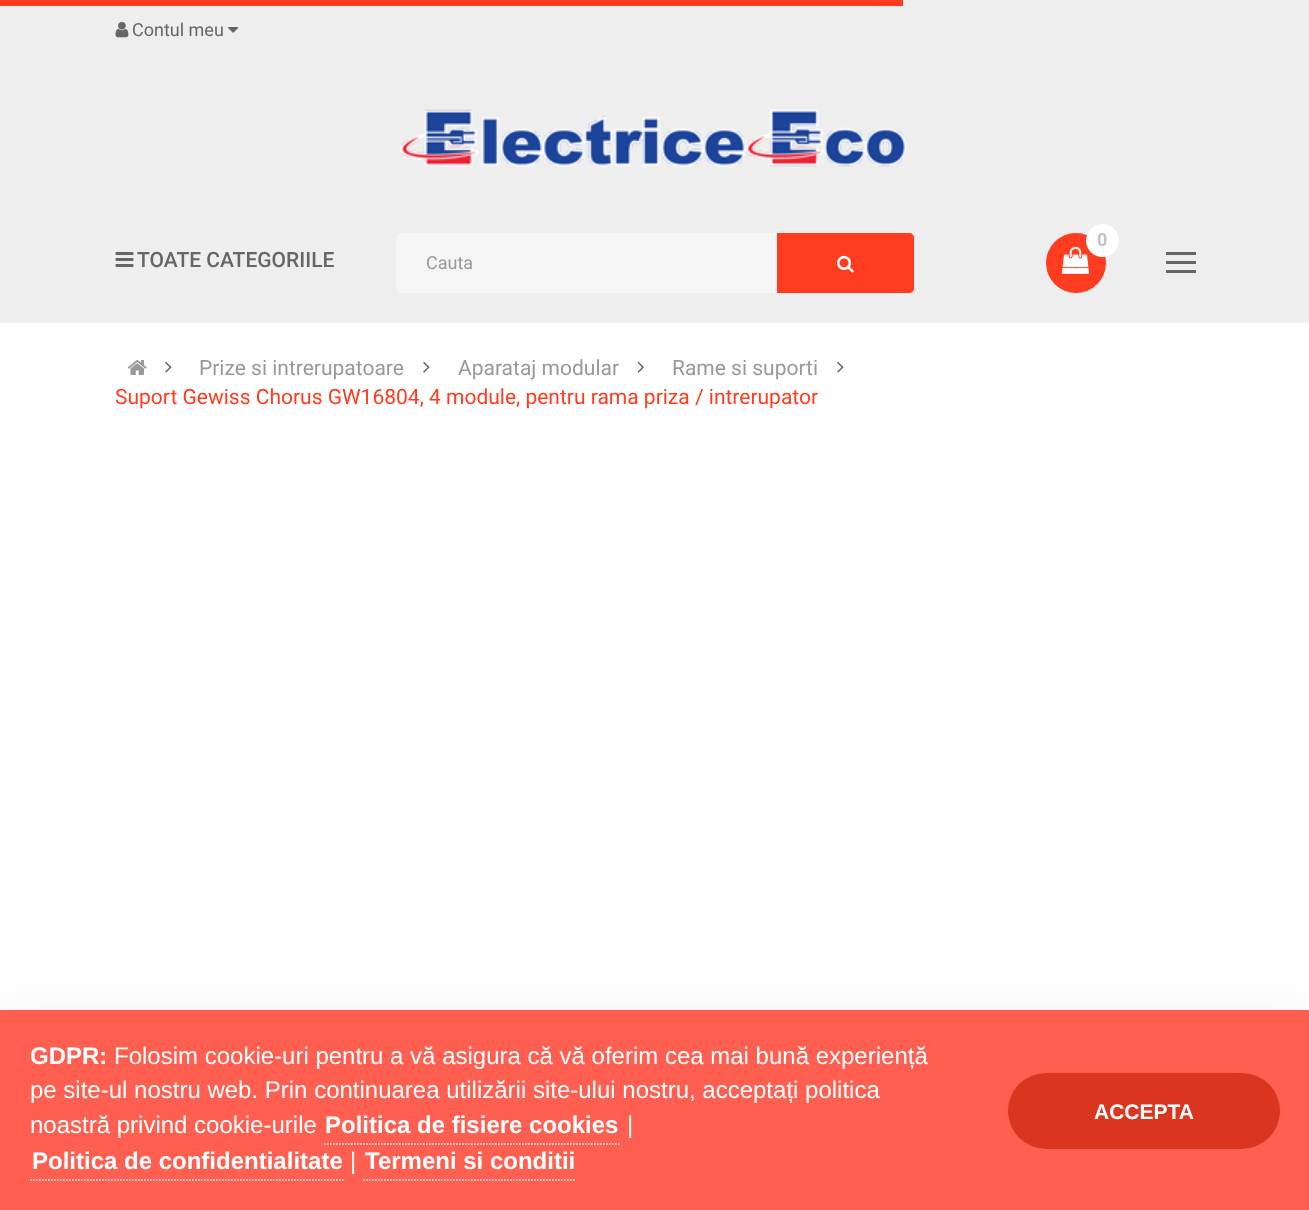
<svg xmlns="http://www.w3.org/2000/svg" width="1309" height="1210">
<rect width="100%" height="100%" fill="#fff"/>
<rect width="1309" height="323" fill="#eee"/>
<rect width="903" height="6" fill="#ff3c20"/>
<image x="115" y="21" width="14" height="17" href="media/1.png"/>
<text x="132" y="36" style="font-family:Roboto;font-size:18px;fill:#666">Contul meu</text>
<image x="228" y="27" width="11" height="6" href="media/2.png"/>
<image x="400" y="109" width="507" height="58" href="media/3.png"/>
<rect x="1166" y="252" width="30" height="3" fill="#666"/>
<rect x="1166" y="261" width="30" height="3" fill="#666"/>
<rect x="1166" y="270" width="30" height="3" fill="#666"/>
<circle cx="1076" cy="263" r="30" fill="#ff3c20"/>
<image x="1062" y="246" width="27" height="28" href="media/4.png"/>
<circle cx="1102.5" cy="240.5" r="16.5" fill="#fff"/>
<text x="1097" y="246" style="font-family:Roboto;font-size:18px;font-weight:bold;fill:#c3c3c3">0</text>
<image x="115" y="252" width="19" height="15" href="media/5.png"/>
<text x="137" y="267" style="font-family:Roboto;font-size:21px;font-weight:500;fill:#666">TOATE CATEGORIILE</text>
<rect x="396" y="233" width="518" height="60" rx="5" fill="#f5f5f5"/>
<text x="426" y="269" style="font-family:Roboto;font-size:18px;fill:#999">Cauta</text>
<path d="M777 233h132c3 0 5 2 5 5v50c0 3-2 5-5 5h-132z" fill="#ff3c20"/>
<image x="837" y="255" width="17" height="18" href="media/6.png"/>
<image x="127" y="360" width="20" height="15" href="media/7.png"/>
<image x="165" y="361" width="7" height="12" href="media/8.png"/>
<text x="199" y="375" style="font-family:Roboto;font-size:21px;fill:#999">Prize si intrerupatoare</text>
<image x="423" y="361" width="7" height="12" href="media/8.png"/>
<text x="458" y="375" style="font-family:Roboto;font-size:21px;fill:#999">Aparataj modular</text>
<image x="637" y="361" width="7" height="12" href="media/9.png"/>
<text x="672" y="375" style="font-family:Roboto;font-size:21px;fill:#999">Rame si suporti</text>
<image x="837" y="361" width="7" height="12" href="media/8.png"/>
<text x="115" y="404" style="font-family:Roboto;font-size:21px;fill:#ff3c20">Suport Gewiss Chorus GW16804, 4 module, pentru rama priza / intrerupator</text>
<rect y="1010" width="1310" height="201" fill="#0000000d" filter="blur(22.5px)"/>
<rect y="1010" width="1309" height="200" fill="#ff5f50"/>
<text x="30" y="1064" style="font-family:Liberation Sans;font-size:24px;font-weight:bold;fill:#fff">GDPR:</text>
<text x="114" y="1064" style="font-family:Liberation Sans;font-size:24px;fill:#fff">Folosim cookie-uri pentru a vă asigura că vă oferim cea mai bună experiență</text>
<text x="30" y="1098" style="font-family:Liberation Sans;font-size:24px;fill:#fff">pe site-ul nostru web. Prin continuarea utilizării site-ului nostru, acceptați politica</text>
<text x="30" y="1133" style="font-family:Liberation Sans;font-size:24px;fill:#fff">noastră privind cookie-urile</text>
<path d="M324 1144h295.5" fill="none" stroke="#fff" stroke-width="1.5" stroke-dasharray="1.5 1.5"/>
<text x="325" y="1133" style="font-family:Liberation Sans;font-size:24px;font-weight:bold;fill:#fff">Politica de fisiere cookies</text>
<text x="627" y="1133" style="font-family:Liberation Sans;font-size:24px;fill:#fff">|</text>
<path d="M30 1180h313.5" fill="none" stroke="#fff" stroke-width="1.5" stroke-dasharray="1.5 1.5"/>
<text x="32" y="1169" style="font-family:Liberation Sans;font-size:24px;font-weight:bold;fill:#fff">Politica de confidentialitate</text>
<text x="350" y="1169" style="font-family:Liberation Sans;font-size:24px;fill:#fff">|</text>
<path d="M363 1180h213" fill="none" stroke="#fff" stroke-width="1.5" stroke-dasharray="1.5 1.5"/>
<text x="365" y="1169" style="font-family:Liberation Sans;font-size:24px;font-weight:bold;fill:#fff">Termeni si conditii</text>
<rect x="1008" y="1073" width="272" height="76" rx="38" fill="#da351e"/>
<text x="1094" y="1119" style="font-family:Liberation Sans;font-size:21px;font-weight:bold;fill:#fff">ACCEPTA</text>
</svg>
